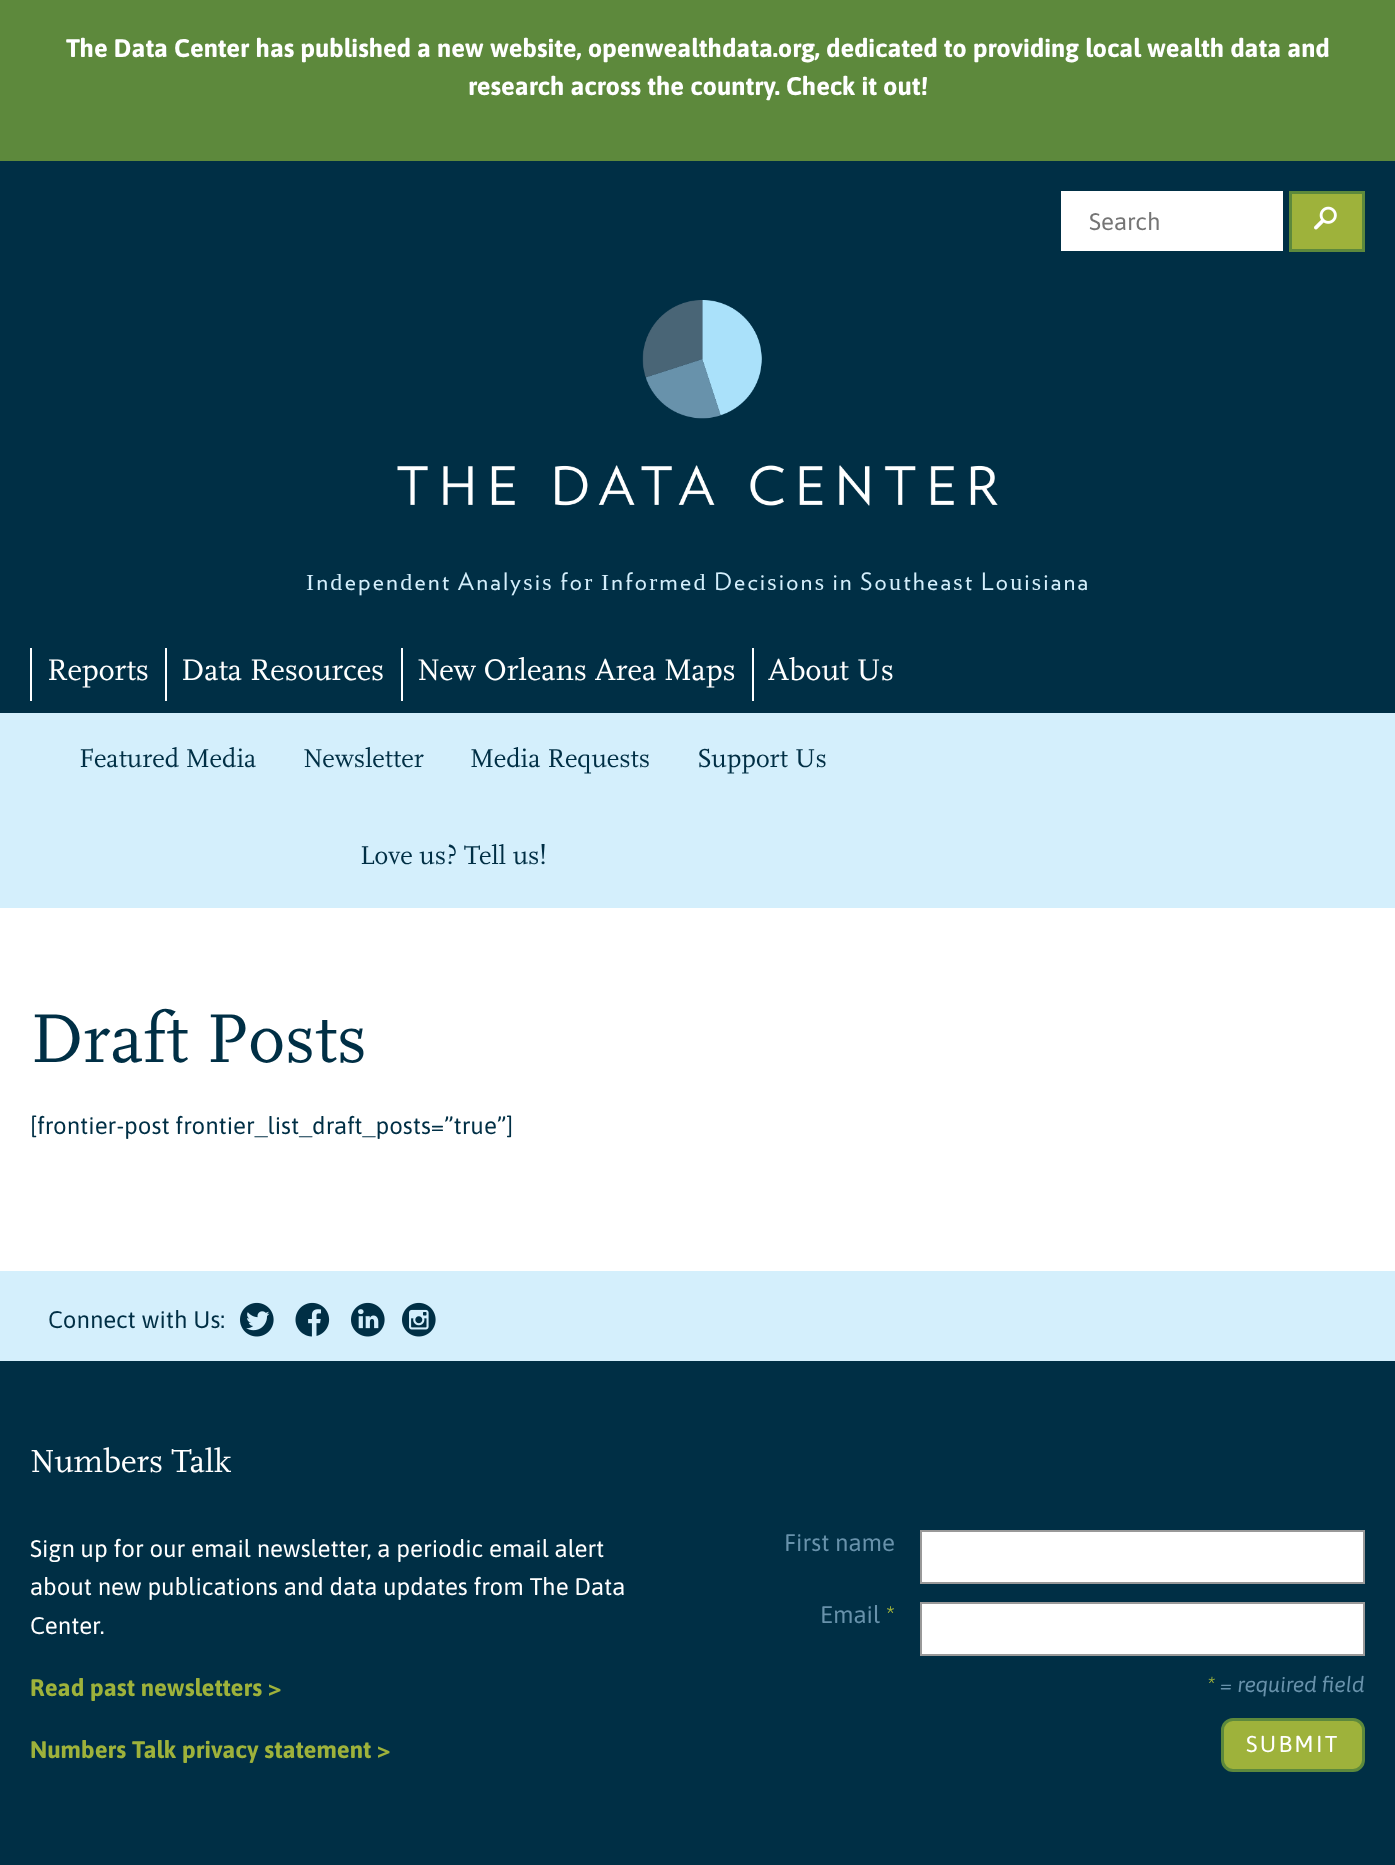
<svg xmlns="http://www.w3.org/2000/svg" width="1395" height="1865">
<rect width="100%" height="100%" fill="#fff"/>
<rect width="1395" height="161" fill="#5d893c"/>
<text x="66" y="57" style="font-family:Asap;font-size:25.5px;font-weight:bold;fill:#fff">The Data Center has published a new website, openwealthdata.org, dedicated to providing local wealth data and</text>
<text x="468" y="95" style="font-family:Asap;font-size:25.5px;font-weight:bold;fill:#fff">research across the country. Check it out!</text>
<rect y="161" width="1395" height="552" fill="#002f45"/>
<rect x="1061" y="191" width="222" height="60" fill="#fff"/>
<text x="1089" y="230" style="font-family:Asap;font-size:24px;fill:#757575">Search</text>
<rect x="1290.5" y="192.5" width="73" height="58" fill="#9eb23b" stroke="#5d893c" stroke-width="3"/>
<image x="1314" y="206" width="23" height="24" href="media/1.png"/>
<image x="397" y="300" width="601" height="206" href="media/2.png"/>
<text x="306" y="590" word-spacing="-1.5" style="font-family:'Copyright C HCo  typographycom';font-size:24px;font-weight:300;letter-spacing:2.4px;fill:#d4effc">Independent Analysis for Informed Decisions in Southeast Louisiana</text>
<rect x="30" y="648" width="2" height="53" fill="#fff"/>
<text x="47" y="680" style="font-family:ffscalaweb;font-size:31.25px;fill:#fff">Reports</text>
<rect x="165" y="648" width="2" height="53" fill="#fff"/>
<text x="181" y="680" style="font-family:ffscalaweb;font-size:31.25px;fill:#fff">Data Resources</text>
<rect x="401" y="648" width="2" height="53" fill="#fff"/>
<text x="417" y="680" style="font-family:ffscalaweb;font-size:31.25px;fill:#fff">New Orleans Area Maps</text>
<rect x="752" y="648" width="2" height="53" fill="#fff"/>
<text x="768" y="680" style="font-family:ffscalaweb;font-size:31.25px;fill:#fff">About Us</text>
<rect y="713" width="1395" height="195" fill="#d4effc"/>
<text x="79" y="767" style="font-family:ffscalaweb;font-size:27px;fill:#002f45">Featured Media</text>
<text x="303" y="767" style="font-family:ffscalaweb;font-size:27px;fill:#002f45">Newsletter</text>
<text x="470" y="767" style="font-family:ffscalaweb;font-size:27px;fill:#002f45">Media Requests</text>
<text x="697" y="767" style="font-family:ffscalaweb;font-size:27px;fill:#002f45">Support Us</text>
<text x="360" y="864" style="font-family:ffscalaweb;font-size:27px;fill:#002f45">Love us? Tell us!</text>
<text x="30" y="1062" style="font-family:ffscalaweb;font-size:72px;fill:#002f45">Draft Posts</text>
<text x="30" y="1134" style="font-family:Asap;font-size:24px;fill:#002f45">[frontier-post frontier_list_draft_posts=”true”]</text>
<rect y="1271" width="1395" height="90" fill="#d4effc"/>
<text x="48" y="1328" style="font-family:Asap;font-size:24px;fill:#002f45">Connect with Us:</text>
<image x="240" y="1302" width="34" height="35" href="media/3.png"/>
<image x="295" y="1302" width="35" height="35" href="media/4.png"/>
<image x="351" y="1302" width="34" height="35" href="media/5.png"/>
<image x="402" y="1302" width="34" height="35" href="media/6.png"/>
<rect y="1361" width="1395" height="504" fill="#002f45"/>
<text x="30" y="1472" style="font-family:ffscalaweb;font-size:33.5px;fill:#fff">Numbers Talk</text>
<text x="30" y="1557" style="font-family:Asap;font-size:24px;fill:#fff">Sign up for our email newsletter, a periodic email alert</text>
<text x="30" y="1595" style="font-family:Asap;font-size:24px;fill:#fff">about new publications and data updates from The Data</text>
<text x="30" y="1634" style="font-family:Asap;font-size:24px;fill:#fff">Center.</text>
<text x="30" y="1696" style="font-family:Asap;font-size:24px;font-weight:bold;fill:#9eb23b">Read past newsletters &gt;</text>
<text x="30" y="1758" style="font-family:Asap;font-size:24px;font-weight:bold;fill:#9eb23b">Numbers Talk privacy statement &gt;</text>
<text x="784" y="1551" style="font-family:Asap;font-size:24px;fill:#6892ab">First name</text>
<rect x="921" y="1531" width="443" height="52" fill="#fff" stroke="#999" stroke-width="2"/>
<text x="820" y="1623" style="font-family:Asap;font-size:24px;fill:#6892ab">Email</text>
<text x="886" y="1623" style="font-family:Asap;font-size:24px;fill:#9eb23b">*</text>
<rect x="921" y="1603" width="443" height="52" fill="#fff" stroke="#999" stroke-width="2"/>
<text x="1207" y="1692" style="font-family:Asap;font-size:21.5px;font-style:italic;fill:#9eb23b">*</text>
<text x="1220" y="1692" style="font-family:Asap;font-size:21.5px;font-style:italic;fill:#6892ab">= required field</text>
<rect x="1222.5" y="1719.5" width="141" height="51" rx="10.5" fill="#9eb23b" stroke="#5d893c" stroke-width="3"/>
<text x="1246" y="1752" style="font-family:Asap;font-size:23px;letter-spacing:2.25px;fill:#fff">SUBMIT</text>
</svg>
